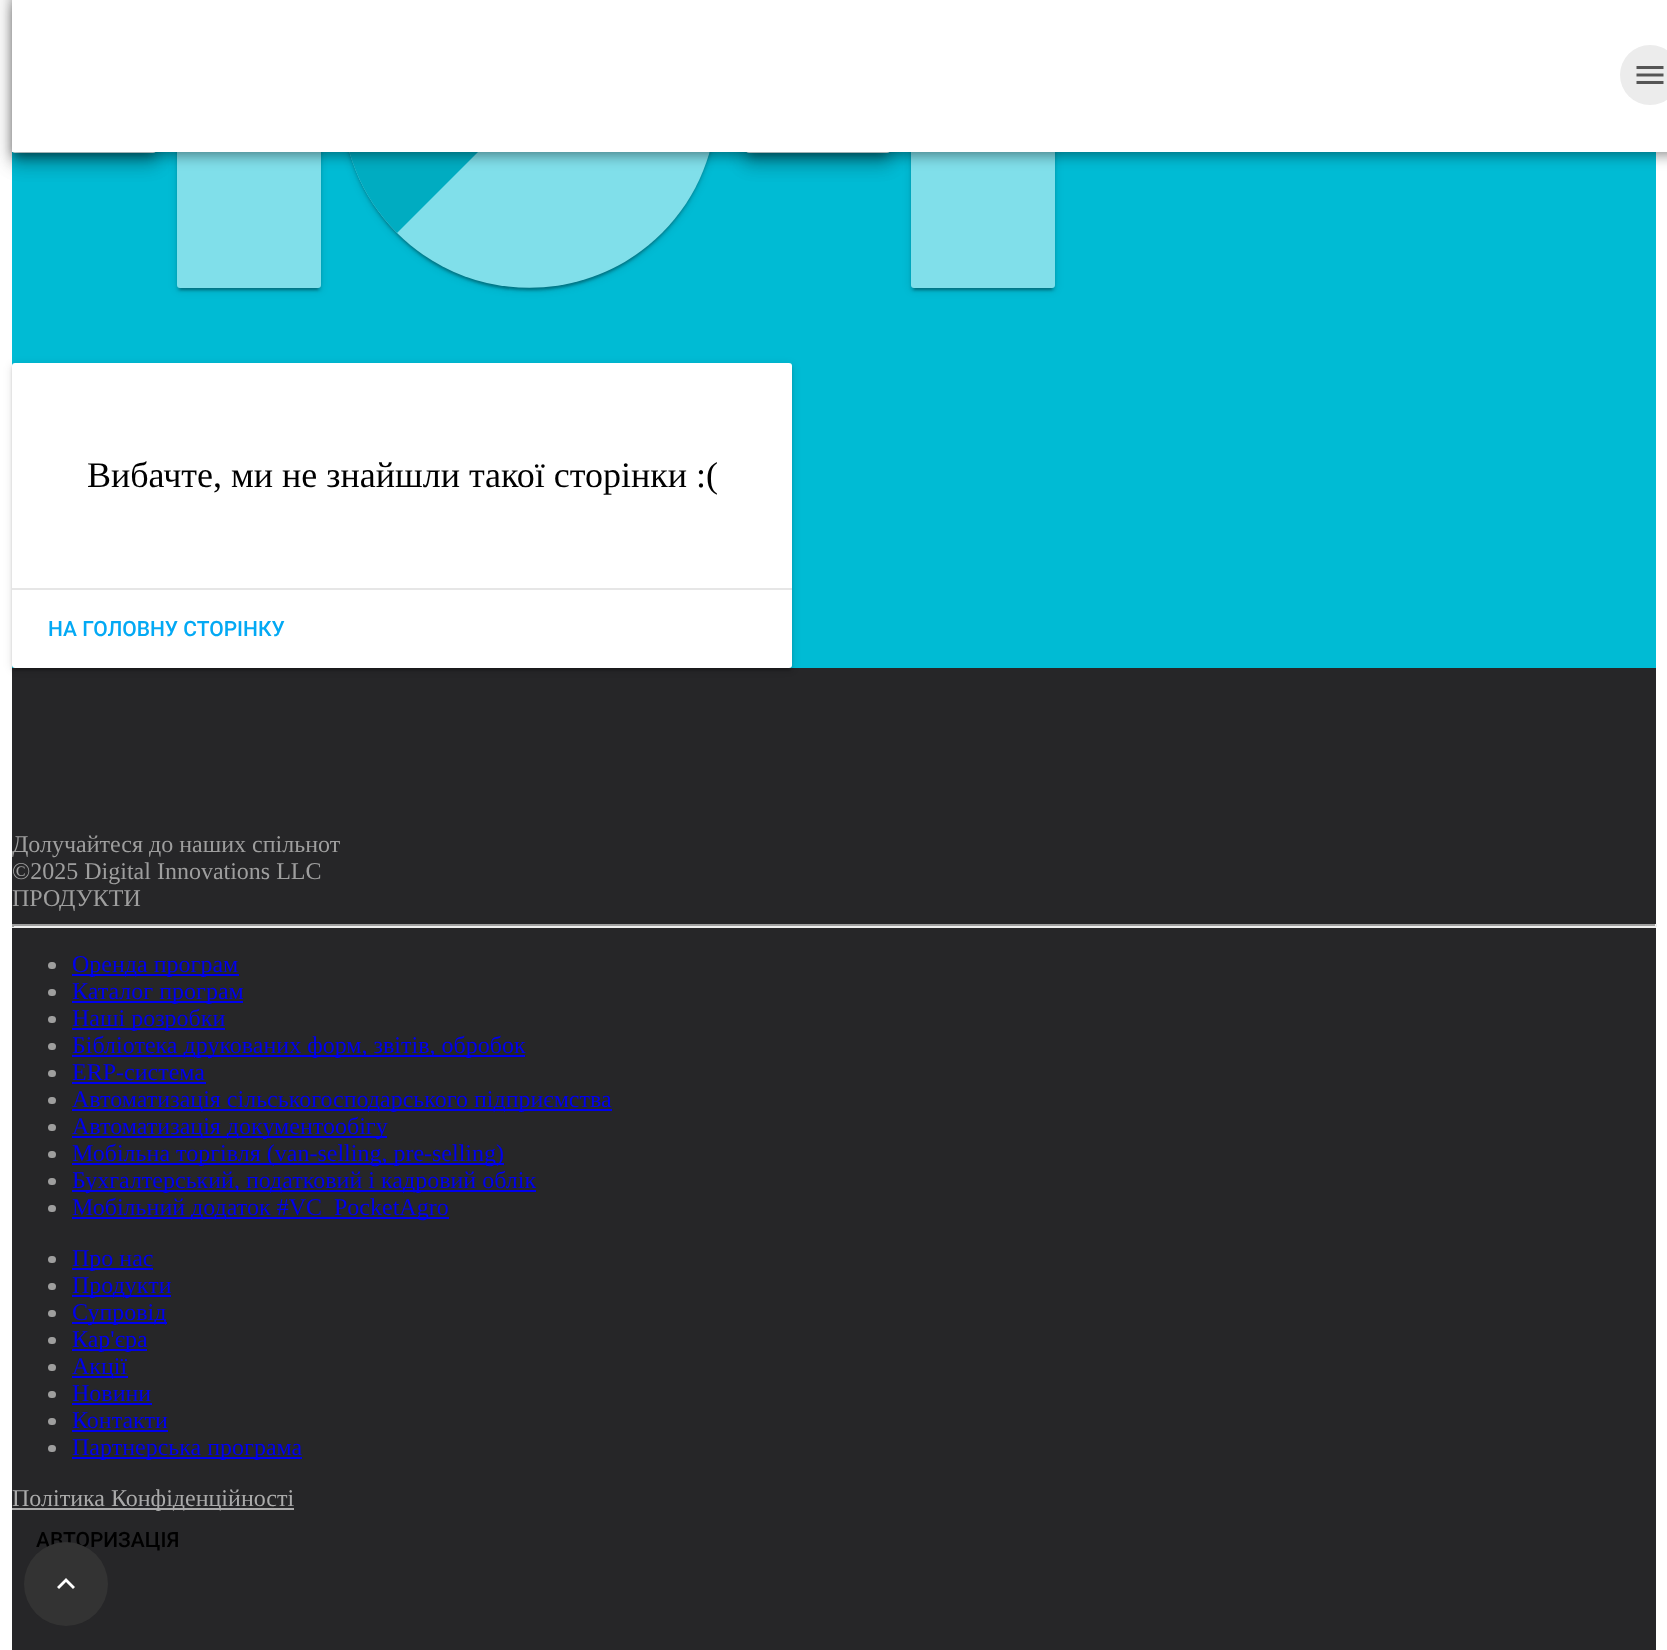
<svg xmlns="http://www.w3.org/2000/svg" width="1667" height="1650">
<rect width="100%" height="100%" fill="#fff"/>
<rect x="12" y="152" width="1644" height="516" fill="#00bbd4"/>
<rect x="17" y="-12" width="135" height="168" fill="#00000033" filter="blur(4px)"/>
<rect x="9" y="-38" width="150" height="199" rx="6" fill="#0000001f" filter="blur(10.5px)"/>
<rect x="11" y="-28" width="147" height="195" rx="5" fill="#00000024" filter="blur(7.5px)"/>
<rect x="12" y="-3" width="144" height="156" rx="3" fill="#e1f8fb"/>
<rect x="177" y="-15" width="144" height="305" rx="3" fill="#0000001f" filter="blur(4px)"/>
<rect x="180" y="-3" width="138" height="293" fill="#00000033" filter="blur(1px)"/>
<rect x="177" y="-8" width="144" height="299" rx="3" fill="#00000024" filter="blur(1.5px)"/>
<rect x="177" y="-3" width="144" height="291" rx="3" fill="#80dfea"/>
<rect x="342" y="-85" width="375" height="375" rx="187.5" fill="#0000001f" filter="blur(4px)"/>
<rect x="345" y="-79" width="369" height="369" rx="184.5" fill="#00000033" filter="blur(1px)"/>
<rect x="342" y="-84" width="375" height="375" rx="187.5" fill="#00000024" filter="blur(1.5px)"/>
<path d="M397-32c73-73 192-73 265 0c73 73 73 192 0 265c-73 73-192 73-265 0c-73-73-73-192 0-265z" fill="#80dfea"/>
<path d="M397-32c73-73 192-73 265 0l-265 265c-73-73-73-192 0-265z" fill="#00acc1"/>
<rect x="750" y="-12" width="135" height="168" fill="#00000033" filter="blur(4px)"/>
<rect x="743" y="-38" width="150" height="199" rx="6" fill="#0000001f" filter="blur(10.5px)"/>
<rect x="744" y="-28" width="147" height="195" rx="5" fill="#00000024" filter="blur(7.5px)"/>
<rect x="746" y="-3" width="144" height="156" rx="3" fill="#e1f8fb"/>
<rect x="911" y="-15" width="144" height="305" rx="3" fill="#0000001f" filter="blur(4px)"/>
<rect x="914" y="-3" width="138" height="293" fill="#00000033" filter="blur(1px)"/>
<rect x="911" y="-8" width="144" height="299" rx="3" fill="#00000024" filter="blur(1.5px)"/>
<rect x="911" y="-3" width="144" height="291" rx="3" fill="#80dfea"/>
<rect x="12" y="6" width="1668" height="152" fill="#00000047" filter="blur(6px)"/>
<rect x="12" width="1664" height="152" fill="#00000024" filter="blur(3px)"/>
<rect x="12" width="1655" height="152" fill="#fff"/>
<circle cx="1650" cy="75" r="30" fill="#ececec"/>
<image x="1636" y="66" width="28" height="18" href="media/1.png"/>
<rect x="12" y="668" width="1644" height="982" fill="#262628"/>
<rect x="12" y="365" width="780" height="304" rx="3" fill="#0000001f" filter="blur(4px)"/>
<rect x="15" y="371" width="774" height="298" fill="#00000033" filter="blur(1px)"/>
<rect x="12" y="366" width="780" height="305" rx="3" fill="#00000024" filter="blur(1.5px)"/>
<rect x="12" y="363" width="780" height="305" rx="3" fill="#fff"/>
<text x="87" y="487" style="font-family:Liberation Serif;font-size:36px;fill:#000">Вибачте, ми не знайшли такої сторінки :(</text>
<rect x="12" y="588" width="780" height="2" fill="#e6e6e6"/>
<text x="48" y="636" style="font-family:Roboto;font-size:21px;font-weight:500;fill:#03a9f4">НА ГОЛОВНУ СТОРІНКУ</text>
<text x="12" y="852" style="font-family:Liberation Serif;font-size:24px;fill:#9e9e9e">Долучайтеся до наших спільнот</text>
<text x="12" y="879" style="font-family:Liberation Serif;font-size:24px;fill:#9e9e9e">©2025 Digital Innovations LLC</text>
<text x="12" y="906" style="font-family:Liberation Serif;font-size:24px;fill:#9e9e9e">ПРОДУКТИ</text>
<rect x="12" y="924" width="1644" height="2" fill="#9f9f9f"/>
<rect x="1655" y="924" width="2" height="3" fill="#eee"/>
<rect x="12" y="926" width="1644" height="2" fill="#eee"/>
<rect x="12" y="924" width="2" height="3" fill="#9f9f9f"/>
<rect x="48" y="962" width="8" height="7" rx="3.5" fill="#9e9e9e"/>
<rect x="72" y="974" width="167" height="2" fill="#00e"/>
<text x="72" y="972" style="font-family:Liberation Serif;font-size:24px;fill:#00e">Оренда програм</text>
<rect x="48" y="989" width="8" height="7" rx="3.5" fill="#9e9e9e"/>
<rect x="72" y="1001" width="171" height="2" fill="#00e"/>
<text x="72" y="999" style="font-family:Liberation Serif;font-size:24px;fill:#00e">Каталог програм</text>
<rect x="48" y="1016" width="8" height="7" rx="3.5" fill="#9e9e9e"/>
<rect x="72" y="1028" width="153" height="2" fill="#00e"/>
<text x="72" y="1026" style="font-family:Liberation Serif;font-size:24px;fill:#00e">Наші розробки</text>
<rect x="48" y="1043" width="8" height="7" rx="3.5" fill="#9e9e9e"/>
<rect x="72" y="1055" width="453" height="2" fill="#00e"/>
<text x="72" y="1053" style="font-family:Liberation Serif;font-size:24px;fill:#00e">Бібліотека друкованих форм, звітів, обробок</text>
<rect x="48" y="1070" width="8" height="7" rx="3.5" fill="#9e9e9e"/>
<text x="72" y="1080" style="font-family:Liberation Serif;font-size:24px;fill:#00e">ERP-система</text>
<rect x="72" y="1082" width="134" height="2" fill="#00e"/>
<rect x="48" y="1097" width="8" height="7" rx="3.5" fill="#9e9e9e"/>
<rect x="72" y="1109" width="540" height="2" fill="#00e"/>
<text x="72" y="1107" style="font-family:Liberation Serif;font-size:24px;fill:#00e">Автоматизація сільськогосподарського підприємства</text>
<rect x="48" y="1124" width="8" height="7" rx="3.5" fill="#9e9e9e"/>
<rect x="72" y="1136" width="315" height="2" fill="#00e"/>
<text x="72" y="1134" style="font-family:Liberation Serif;font-size:24px;fill:#00e">Автоматизація документообігу</text>
<rect x="48" y="1151" width="8" height="7" rx="3.5" fill="#9e9e9e"/>
<rect x="72" y="1163" width="432" height="2" fill="#00e"/>
<text x="72" y="1161" style="font-family:Liberation Serif;font-size:24px;fill:#00e">Мобільна торгівля (van-selling, pre-selling)</text>
<rect x="48" y="1178" width="8" height="7" rx="3.5" fill="#9e9e9e"/>
<rect x="72" y="1190" width="464" height="2" fill="#00e"/>
<text x="72" y="1188" style="font-family:Liberation Serif;font-size:24px;fill:#00e">Бухгалтерський, податковий і кадровий облік</text>
<rect x="48" y="1205" width="8" height="7" rx="3.5" fill="#9e9e9e"/>
<rect x="72" y="1217" width="377" height="2" fill="#00e"/>
<text x="72" y="1215" style="font-family:Liberation Serif;font-size:24px;fill:#00e">Мобільний додаток #VC_PocketAgro</text>
<rect x="48" y="1256" width="8" height="7" rx="3.5" fill="#9e9e9e"/>
<rect x="72" y="1268" width="81" height="2" fill="#00e"/>
<text x="72" y="1266" style="font-family:Liberation Serif;font-size:24px;fill:#00e">Про нас</text>
<rect x="48" y="1283" width="8" height="7" rx="3.5" fill="#9e9e9e"/>
<rect x="72" y="1295" width="99" height="2" fill="#00e"/>
<text x="72" y="1293" style="font-family:Liberation Serif;font-size:24px;fill:#00e">Продукти</text>
<rect x="48" y="1310" width="8" height="7" rx="3.5" fill="#9e9e9e"/>
<rect x="72" y="1322" width="95" height="2" fill="#00e"/>
<text x="72" y="1320" style="font-family:Liberation Serif;font-size:24px;fill:#00e">Супровід</text>
<rect x="48" y="1337" width="8" height="7" rx="3.5" fill="#9e9e9e"/>
<rect x="72" y="1349" width="75" height="2" fill="#00e"/>
<text x="72" y="1347" style="font-family:Liberation Serif;font-size:24px;fill:#00e">Кар'єра</text>
<rect x="48" y="1364" width="8" height="7" rx="3.5" fill="#9e9e9e"/>
<rect x="72" y="1376" width="56" height="2" fill="#00e"/>
<text x="72" y="1374" style="font-family:Liberation Serif;font-size:24px;fill:#00e">Акції</text>
<rect x="48" y="1391" width="8" height="7" rx="3.5" fill="#9e9e9e"/>
<text x="72" y="1401" style="font-family:Liberation Serif;font-size:24px;fill:#00e">Новини</text>
<rect x="72" y="1403" width="80" height="2" fill="#00e"/>
<rect x="48" y="1418" width="8" height="7" rx="3.5" fill="#9e9e9e"/>
<text x="72" y="1428" style="font-family:Liberation Serif;font-size:24px;fill:#00e">Контакти</text>
<rect x="72" y="1430" width="96" height="2" fill="#00e"/>
<rect x="48" y="1445" width="8" height="7" rx="3.5" fill="#9e9e9e"/>
<rect x="72" y="1457" width="230" height="2" fill="#00e"/>
<text x="72" y="1455" style="font-family:Liberation Serif;font-size:24px;fill:#00e">Партнерська програма</text>
<rect x="12" y="1508" width="282" height="2" fill="#aaa"/>
<text x="12" y="1506" style="font-family:Liberation Serif;font-size:24px;fill:#aaa">Політика Конфіденційності</text>
<text x="36" y="1547" style="font-family:Roboto;font-size:21px;font-weight:500;fill:#000">АВТОРИЗАЦІЯ</text>
<circle cx="66" cy="1584" r="42" fill="#333"/>
<path d="M59 1589l-2-2l9-9l9 9l-2 2l-7-7z" fill="#fff"/>
</svg>
